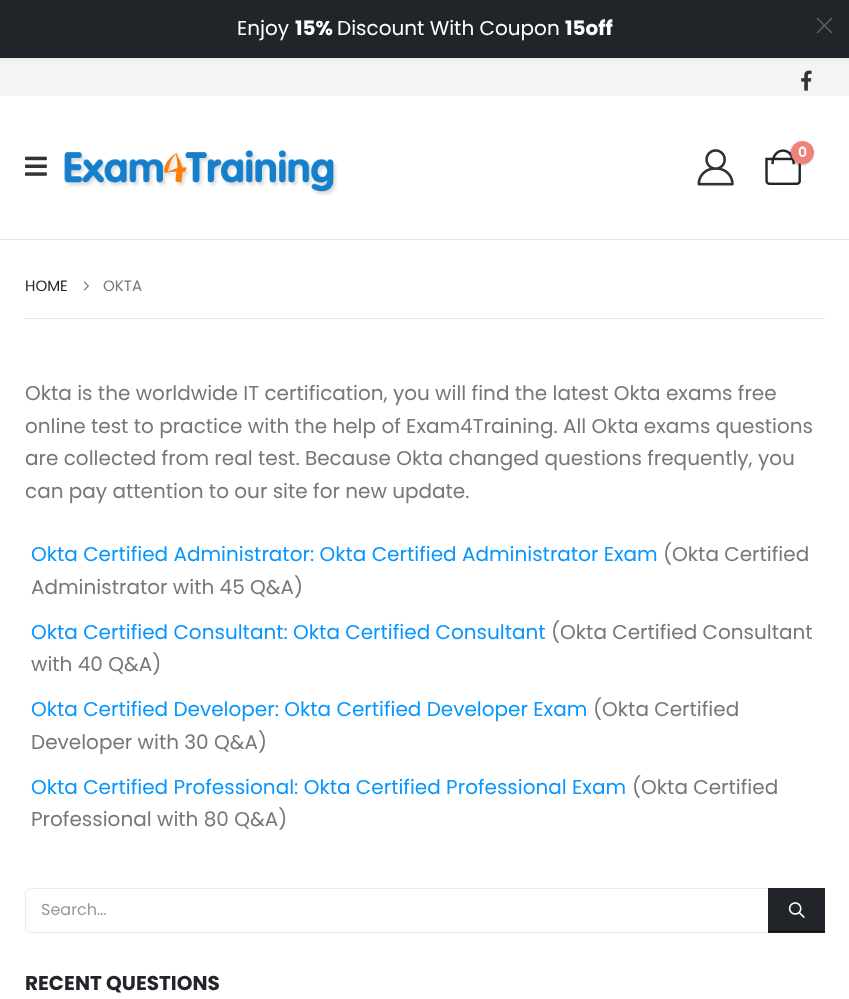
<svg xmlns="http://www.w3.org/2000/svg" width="849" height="999">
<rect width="100%" height="100%" fill="#fff"/>
<rect width="849" height="58" fill="#212529"/>
<text x="237" y="35" style="font-family:Poppins;font-size:20px;fill:#fff">Enjoy</text>
<text x="295" y="35" style="font-family:Poppins;font-size:20px;font-weight:bold;fill:#fff">15%</text>
<text x="337" y="35" style="font-family:Poppins;font-size:20px;fill:#fff">Discount With Coupon</text>
<text x="565" y="35" style="font-family:Poppins;font-size:20px;font-weight:bold;fill:#fff">15off</text>
<path d="M817.5 17.5l15 15l-1 1l-15-15z" fill="#616264"/>
<path d="M831.5 17.5l1 1l-15 15l-1-1z" fill="#616264"/>
<rect y="58" width="849" height="3" fill="#ededed"/>
<rect y="61" width="849" height="35" fill="#f4f4f4"/>
<image x="801" y="70" width="11" height="21" href="media/1.png"/>
<image x="25" y="156" width="22" height="20" href="media/2.png"/>
<image x="64" y="150" width="274" height="46" href="media/3.png"/>
<image x="697" y="149" width="37" height="37" href="media/4.png"/>
<image x="765" y="149" width="36" height="36" href="media/5.png"/>
<rect x="790" y="143" width="23" height="22" rx="11" fill="#0000004d" filter="blur(1px)"/>
<circle cx="802.5" cy="152.5" r="11.5" fill="#ee8379"/>
<text x="798" y="157" style="font-family:Poppins;font-size:14px;font-weight:600;fill:#fff">0</text>
<rect y="239" width="849" height="1" fill="#e7e7e7"/>
<text x="25" y="291" style="font-family:Poppins;font-size:15px;fill:#222529">HOME</text>
<image x="83" y="281" width="6" height="10" href="media/6.png"/>
<text x="103" y="291" style="font-family:Poppins;font-size:15px;fill:#777">OKTA</text>
<rect x="25" y="318" width="800" height="1" fill="#e7e7e7"/>
<text x="25" y="400" style="font-family:Poppins;font-size:20px;fill:#777">Okta is the worldwide IT certification, you will find the latest Okta exams free</text>
<text x="25" y="433" style="font-family:Poppins;font-size:20px;fill:#777">online test to practice with the help of Exam4Training. All Okta exams questions</text>
<text x="25" y="465" style="font-family:Poppins;font-size:20px;fill:#777">are collected from real test. Because Okta changed questions frequently, you</text>
<text x="25" y="498" style="font-family:Poppins;font-size:20px;fill:#777">can pay attention to our site for new update.</text>
<text x="31" y="561" style="font-family:Poppins;font-size:20px;fill:#0896fe">Okta Certified Administrator: Okta Certified Administrator Exam</text>
<text x="663" y="561" style="font-family:Poppins;font-size:20px;fill:#777">(Okta Certified</text>
<text x="31" y="594" style="font-family:Poppins;font-size:20px;fill:#777">Administrator with 45 Q&amp;A)</text>
<text x="31" y="639" style="font-family:Poppins;font-size:20px;fill:#0896fe">Okta Certified Consultant: Okta Certified Consultant</text>
<text x="551" y="639" style="font-family:Poppins;font-size:20px;fill:#777">(Okta Certified Consultant</text>
<text x="31" y="671" style="font-family:Poppins;font-size:20px;fill:#777">with 40 Q&amp;A)</text>
<text x="31" y="716" style="font-family:Poppins;font-size:20px;fill:#0896fe">Okta Certified Developer: Okta Certified Developer Exam</text>
<text x="593" y="716" style="font-family:Poppins;font-size:20px;fill:#777">(Okta Certified</text>
<text x="31" y="749" style="font-family:Poppins;font-size:20px;fill:#777">Developer with 30 Q&amp;A)</text>
<text x="31" y="794" style="font-family:Poppins;font-size:20px;fill:#0896fe">Okta Certified Professional: Okta Certified Professional Exam</text>
<text x="632" y="794" style="font-family:Poppins;font-size:20px;fill:#777">(Okta Certified</text>
<text x="31" y="826" style="font-family:Poppins;font-size:20px;fill:#777">Professional with 80 Q&amp;A)</text>
<path d="M31 888.5h737.5v44h-737.5c-3 0-5.5-2.5-5.5-5.5v-33c0-3 2.5-5.5 5.5-5.5z" fill="none" stroke="#ebebeb"/>
<text x="41" y="915" style="font-family:Poppins;font-size:16px;fill:#999">Search…</text>
<rect x="769" y="888" width="56" height="45" fill="#212529"/>
<rect x="768" y="931" width="57" height="1" fill="#0b0c0d"/>
<rect x="768" y="888" width="1" height="45" fill="#212529"/>
<image x="788" y="902" width="17" height="16" href="media/7.png"/>
<text x="25" y="990" style="font-family:Poppins;font-size:20px;font-weight:bold;fill:#222529">RECENT QUESTIONS</text>
</svg>
